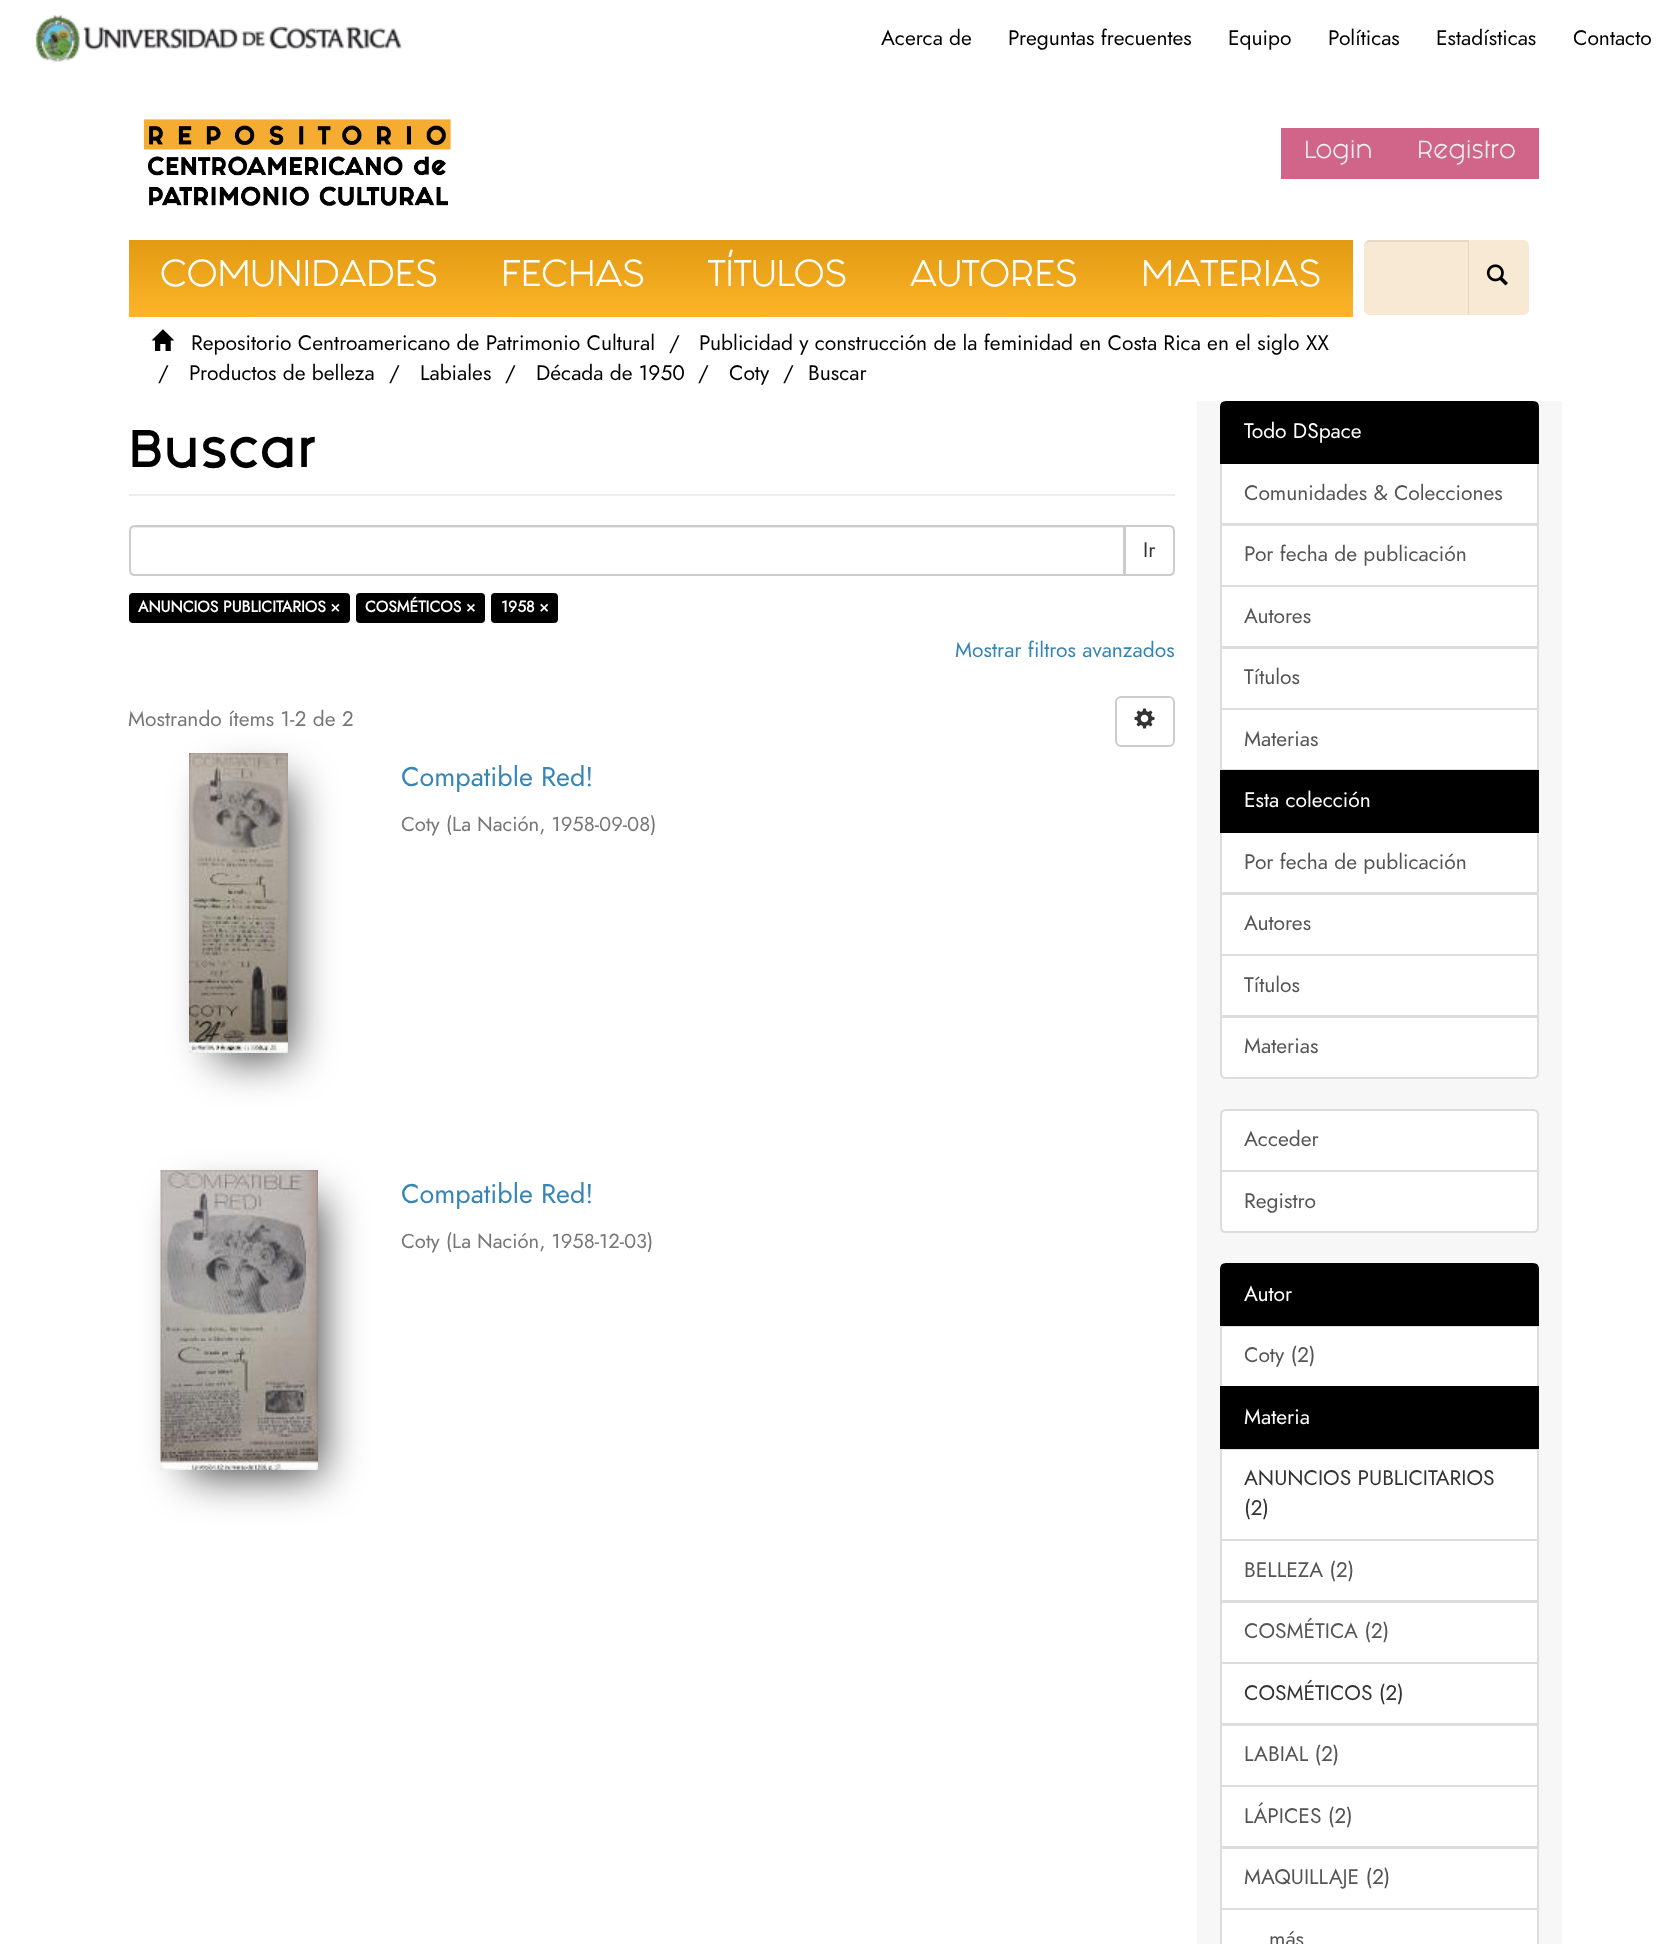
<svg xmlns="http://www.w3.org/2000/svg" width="1666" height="1944">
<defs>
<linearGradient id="g1" gradientUnits="userSpaceOnUse" x1="299" y1="240" x2="299" y2="317"><stop offset="0" stop-color="#e19a12"/><stop offset="1" stop-color="#fdb429"/></linearGradient>
<linearGradient id="g2" gradientUnits="userSpaceOnUse" x1="573" y1="240" x2="573" y2="317"><stop offset="0" stop-color="#e19a12"/><stop offset="1" stop-color="#fdb429"/></linearGradient>
<linearGradient id="g3" gradientUnits="userSpaceOnUse" x1="778" y1="240" x2="778" y2="317"><stop offset="0" stop-color="#e19a12"/><stop offset="1" stop-color="#fdb429"/></linearGradient>
<linearGradient id="g4" gradientUnits="userSpaceOnUse" x1="995" y1="240" x2="995" y2="317"><stop offset="0" stop-color="#e19a12"/><stop offset="1" stop-color="#fdb429"/></linearGradient>
<linearGradient id="g5" gradientUnits="userSpaceOnUse" x1="1232" y1="240" x2="1232" y2="317"><stop offset="0" stop-color="#e19a12"/><stop offset="1" stop-color="#fdb429"/></linearGradient>
</defs>
<rect width="100%" height="100%" fill="#fff"/>
<image x="35" y="14" width="367" height="48" href="media/1.png"/>
<text x="881" y="45" style="font-family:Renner;font-size:21px;fill:#000">Acerca de</text>
<text x="1008" y="45" style="font-family:Renner;font-size:21px;fill:#000">Preguntas frecuentes</text>
<text x="1228" y="45" style="font-family:Renner;font-size:21px;fill:#000">Equipo</text>
<text x="1328" y="45" style="font-family:Renner;font-size:21px;fill:#000">Políticas</text>
<text x="1436" y="45" style="font-family:Renner;font-size:21px;fill:#000">Estadísticas</text>
<text x="1573" y="45" style="font-family:Renner;font-size:21px;fill:#000">Contacto</text>
<image x="143" y="119" width="308" height="87" href="media/2.png"/>
<rect x="1281" y="128" width="258" height="51" fill="#d06589"/>
<text x="1304" y="158" style="font-family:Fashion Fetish;font-size:21px;fill:#eee">Login</text>
<text x="1417" y="158" style="font-family:Fashion Fetish;font-size:21px;fill:#eee">Registro</text>
<rect x="129" y="240" width="341" height="77" fill="url(#g1)"/>
<text x="160" y="286" style="font-family:Fashion Fetish;font-size:31.5px;fill:#fff">COMUNIDADES</text>
<rect x="470" y="240" width="207" height="77" fill="url(#g2)"/>
<text x="501" y="286" style="font-family:Fashion Fetish;font-size:31.5px;fill:#fff">FECHAS</text>
<rect x="677" y="240" width="202" height="77" fill="url(#g3)"/>
<text x="708" y="286" style="font-family:Fashion Fetish;font-size:31.5px;fill:#fff">TÍTULOS</text>
<rect x="879" y="240" width="231" height="77" fill="url(#g4)"/>
<text x="910" y="286" style="font-family:Fashion Fetish;font-size:31.5px;fill:#fff">AUTORES</text>
<rect x="1110" y="240" width="243" height="77" fill="url(#g5)"/>
<text x="1141" y="286" style="font-family:Fashion Fetish;font-size:31.5px;fill:#fff">MATERIAS</text>
<path d="M1467 240h56c3.5 0 6 2.5 6 6v63c0 3.5-2.5 6-6 6h-56z" fill="#f8e9d4"/>
<path d="M1370 240h99v75h-99c-3.5 0-6-2.5-6-6v-63c0-3.5 2.5-6 6-6z" fill="#f8e9d4"/>
<path d="M1370 242h98v73h1v-75h-99c-3 0-6 3-6 6v2c0-4 2-6 6-6z" fill="#00000012"/>
<image x="1486" y="264" width="22" height="22" href="media/3.png"/>
<image x="151" y="329" width="24" height="22" href="media/4.png"/>
<text x="191" y="350" style="font-family:Renner;font-size:21px;fill:#000">Repositorio Centroamericano de Patrimonio Cultural</text>
<text x="669" y="350" style="font-family:Renner;font-size:21px;fill:#000">/</text>
<text x="699" y="350" style="font-family:Renner;font-size:21px;fill:#000">Publicidad y construcción de la feminidad en Costa Rica en el siglo XX</text>
<text x="158" y="380" style="font-family:Renner;font-size:21px;fill:#000">/</text>
<text x="189" y="380" style="font-family:Renner;font-size:21px;fill:#000">Productos de belleza</text>
<text x="389" y="380" style="font-family:Renner;font-size:21px;fill:#000">/</text>
<text x="420" y="380" style="font-family:Renner;font-size:21px;fill:#000">Labiales</text>
<text x="505" y="380" style="font-family:Renner;font-size:21px;fill:#000">/</text>
<text x="536" y="380" style="font-family:Renner;font-size:21px;fill:#000">Década de 1950</text>
<text x="698" y="380" style="font-family:Renner;font-size:21px;fill:#000">/</text>
<text x="729" y="380" style="font-family:Renner;font-size:21px;fill:#000">Coty</text>
<text x="783" y="380" style="font-family:Renner;font-size:21px;fill:#000">/</text>
<text x="808" y="380" style="font-family:Renner;font-size:21px;fill:#000">Buscar</text>
<rect x="1197" y="401" width="365" height="1543" fill="#f7f7f7"/>
<rect x="129" y="494" width="1046" height="2" fill="#eee"/>
<text x="128" y="467" style="font-family:Fashion Fetish;font-size:45px;font-weight:bold;fill:#000">Buscar</text>
<path d="M1125 526h44c3 0 5 2 5 5v39c0 3-2 5-5 5h-44z" fill="none" stroke="#ccc" stroke-width="2"/>
<path d="M135 525h990v51h-990c-3.5 0-6-2.5-6-6v-39c0-3.5 2.5-6 6-6z" fill="#fff"/>
<path d="M135 528h989v-1h-988c-2 0-3 1-4 2z" fill="#ececec"/>
<path d="M135 526h989v49h-989c-3 0-5-2-5-5v-39c0-3 2-5 5-5z" fill="none" stroke="#ccc" stroke-width="2"/>
<text x="1143" y="557" style="font-family:Renner;font-size:21px;fill:#333">Ir</text>
<rect x="129" y="593" width="221" height="30" rx="4" fill="#000"/>
<text x="138" y="612" style="font-family:Renner;font-size:15.75px;font-weight:bold;fill:#fff">ANUNCIOS PUBLICITARIOS ×</text>
<rect x="356" y="593" width="129" height="30" rx="4" fill="#000"/>
<text x="365" y="612" style="font-family:Renner;font-size:15.75px;font-weight:bold;fill:#fff">COSMÉTICOS ×</text>
<rect x="491" y="593" width="67" height="30" rx="4" fill="#000"/>
<text x="501" y="612" style="font-family:Renner;font-size:15.75px;font-weight:bold;fill:#fff">1958 ×</text>
<text x="955" y="657" style="font-family:Renner;font-size:21px;fill:#3685b4">Mostrar filtros avanzados</text>
<text x="128" y="726" style="font-family:Renner;font-size:21px;fill:#777">Mostrando ítems 1-2 de 2</text>
<rect x="1116" y="697" width="58" height="49" rx="5" fill="none" stroke="#ccc" stroke-width="2"/>
<image x="1134" y="708" width="21" height="21" href="media/5.png"/>
<rect x="216" y="782" width="75" height="276" fill="#000000bf" filter="blur(22px)"/>
<image x="189" y="753" width="99" height="300" href="media/6.png"/>
<text x="401" y="786" style="font-family:Renner;font-size:27px;fill:#3685b4">Compatible Red!</text>
<text x="401" y="831" style="font-family:Renner;font-size:20.25px;fill:#777">Coty (La Nación, 1958-09-08)</text>
<rect x="188" y="1199" width="133" height="276" fill="#000000bf" filter="blur(22px)"/>
<image x="160" y="1170" width="158" height="300" href="media/7.png"/>
<text x="401" y="1203" style="font-family:Renner;font-size:27px;fill:#3685b4">Compatible Red!</text>
<text x="401" y="1248" style="font-family:Renner;font-size:20.25px;fill:#777">Coty (La Nación, 1958-12-03)</text>
<rect x="1221" y="463" width="317" height="61" fill="#fff" stroke="#ddd" stroke-width="2"/>
<path d="M1226 402h307c3 0 5 2 5 5v56h-317v-56c0-3 2-5 5-5z" fill="#000" stroke="#000" stroke-width="2"/>
<text x="1244" y="438" style="font-family:Renner;font-size:21px;fill:#fff">Todo DSpace</text>
<text x="1244" y="500" style="font-family:Renner;font-size:21px;fill:#555">Comunidades &amp; Colecciones</text>
<rect x="1221" y="525" width="317" height="61" fill="#fff" stroke="#ddd" stroke-width="2"/>
<text x="1244" y="561" style="font-family:Renner;font-size:21px;fill:#555">Por fecha de publicación</text>
<rect x="1221" y="586" width="317" height="61" fill="#fff" stroke="#ddd" stroke-width="2"/>
<text x="1244" y="623" style="font-family:Renner;font-size:21px;fill:#555">Autores</text>
<rect x="1221" y="648" width="317" height="61" fill="#fff" stroke="#ddd" stroke-width="2"/>
<text x="1244" y="684" style="font-family:Renner;font-size:21px;fill:#555">Títulos</text>
<rect x="1221" y="709" width="317" height="61" fill="#fff" stroke="#ddd" stroke-width="2"/>
<text x="1244" y="746" style="font-family:Renner;font-size:21px;fill:#555">Materias</text>
<rect x="1221" y="832" width="317" height="61" fill="#fff" stroke="#ddd" stroke-width="2"/>
<rect x="1220" y="770" width="319" height="63" fill="#000"/>
<text x="1244" y="807" style="font-family:Renner;font-size:21px;fill:#fff">Esta colección</text>
<text x="1244" y="869" style="font-family:Renner;font-size:21px;fill:#555">Por fecha de publicación</text>
<rect x="1221" y="894" width="317" height="61" fill="#fff" stroke="#ddd" stroke-width="2"/>
<text x="1244" y="930" style="font-family:Renner;font-size:21px;fill:#555">Autores</text>
<rect x="1221" y="955" width="317" height="61" fill="#fff" stroke="#ddd" stroke-width="2"/>
<text x="1244" y="992" style="font-family:Renner;font-size:21px;fill:#555">Títulos</text>
<path d="M1221 1017h317v56c0 3-2 5-5 5h-307c-3 0-5-2-5-5z" fill="#fff" stroke="#ddd" stroke-width="2"/>
<text x="1244" y="1053" style="font-family:Renner;font-size:21px;fill:#555">Materias</text>
<path d="M1226 1110h307c3 0 5 2 5 5v56h-317v-56c0-3 2-5 5-5z" fill="#fff" stroke="#ddd" stroke-width="2"/>
<text x="1244" y="1146" style="font-family:Renner;font-size:21px;fill:#555">Acceder</text>
<path d="M1221 1171h317v56c0 3-2 5-5 5h-307c-3 0-5-2-5-5z" fill="#fff" stroke="#ddd" stroke-width="2"/>
<text x="1244" y="1208" style="font-family:Renner;font-size:21px;fill:#555">Registro</text>
<rect x="1221" y="1326" width="317" height="61" fill="#fff" stroke="#ddd" stroke-width="2"/>
<path d="M1226 1264h307c3 0 5 2 5 5v56h-317v-56c0-3 2-5 5-5z" fill="#000" stroke="#000" stroke-width="2"/>
<text x="1244" y="1301" style="font-family:Renner;font-size:21px;fill:#fff">Autor</text>
<text x="1244" y="1362" style="font-family:Renner;font-size:21px;fill:#555">Coty (2)</text>
<rect x="1221" y="1449" width="317" height="91" fill="#fff" stroke="#ddd" stroke-width="2"/>
<rect x="1220" y="1386" width="319" height="63" fill="#000"/>
<text x="1244" y="1424" style="font-family:Renner;font-size:21px;fill:#fff">Materia</text>
<text x="1244" y="1485" style="font-family:Renner;font-size:21px;fill:#333">ANUNCIOS PUBLICITARIOS</text>
<text x="1244" y="1515" style="font-family:Renner;font-size:21px;fill:#333">(2)</text>
<rect x="1221" y="1540" width="317" height="61" fill="#fff" stroke="#ddd" stroke-width="2"/>
<text x="1244" y="1577" style="font-family:Renner;font-size:21px;fill:#555">BELLEZA (2)</text>
<rect x="1221" y="1602" width="317" height="61" fill="#fff" stroke="#ddd" stroke-width="2"/>
<text x="1244" y="1638" style="font-family:Renner;font-size:21px;fill:#555">COSMÉTICA (2)</text>
<rect x="1221" y="1663" width="317" height="61" fill="#fff" stroke="#ddd" stroke-width="2"/>
<text x="1244" y="1700" style="font-family:Renner;font-size:21px;fill:#333">COSMÉTICOS (2)</text>
<rect x="1221" y="1725" width="317" height="61" fill="#fff" stroke="#ddd" stroke-width="2"/>
<text x="1244" y="1761" style="font-family:Renner;font-size:21px;fill:#555">LABIAL (2)</text>
<rect x="1221" y="1786" width="317" height="61" fill="#fff" stroke="#ddd" stroke-width="2"/>
<text x="1244" y="1823" style="font-family:Renner;font-size:21px;fill:#555">LÁPICES (2)</text>
<rect x="1221" y="1848" width="317" height="61" fill="#fff" stroke="#ddd" stroke-width="2"/>
<text x="1244" y="1884" style="font-family:Renner;font-size:21px;fill:#555">MAQUILLAJE (2)</text>
<rect x="1221" y="1909" width="317" height="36" fill="#fff" stroke="#ddd" stroke-width="2"/>
<text x="1269" y="1946" style="font-family:Renner;font-size:21px;fill:#555">más</text>
</svg>
